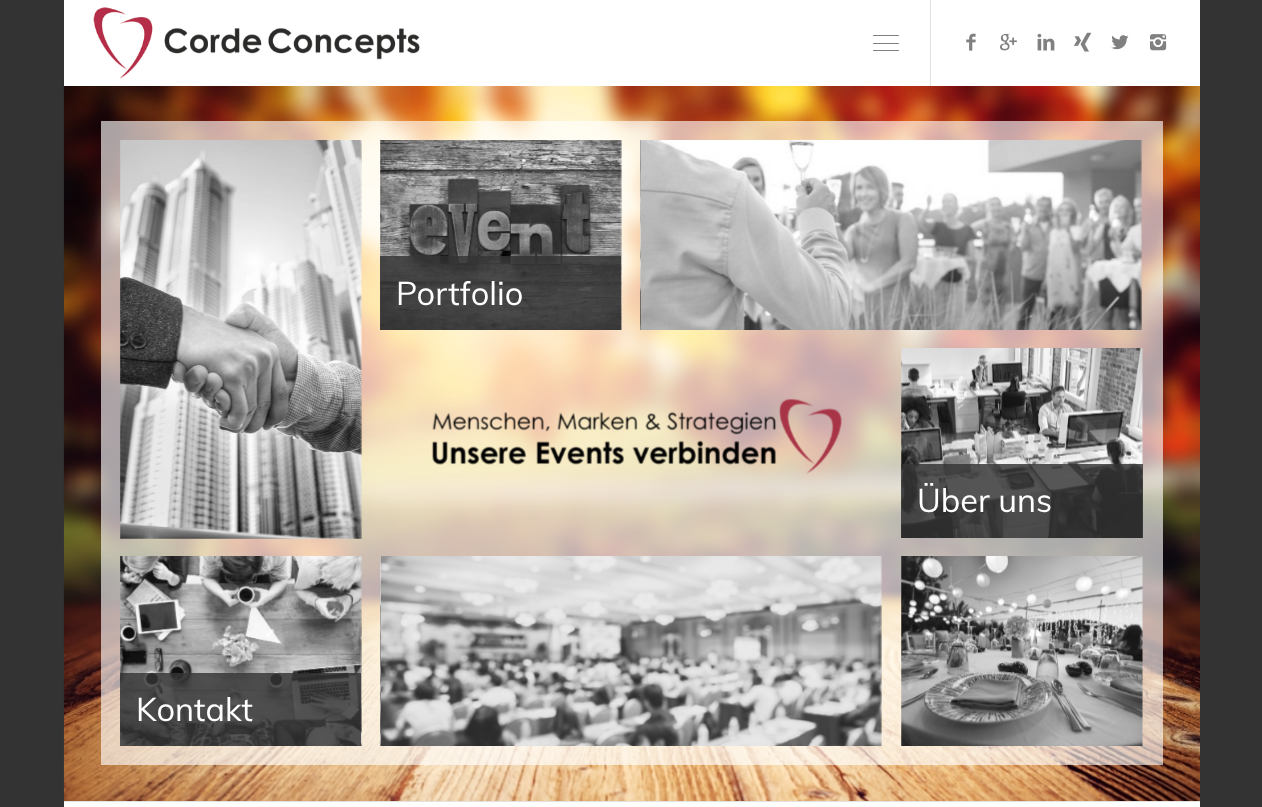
<svg xmlns="http://www.w3.org/2000/svg" width="1262" height="807">
<rect width="100%" height="100%" fill="#333"/>
<image x="63" y="84" width="1137" height="719" href="media/8.png"/>
<rect x="64" width="1136" height="86" fill="#fff"/>
<image x="93" y="7" width="327" height="72" href="media/1.png"/>
<rect x="930" width="1" height="86" fill="#e1e1e1"/>
<rect x="873" y="43" width="26" height="1" rx="0.5" fill="#808080"/>
<rect x="873" y="35" width="26" height="1" rx="0.5" fill="#808080"/>
<rect x="873" y="50" width="26" height="1" rx="0.5" fill="#808080"/>
<image x="966" y="33" width="10" height="18" href="media/2.png"/>
<image x="1000" y="33" width="17" height="18" href="media/3.png"/>
<image x="1037" y="33" width="18" height="18" href="media/4.png"/>
<image x="1073" y="32" width="19" height="20" href="media/5.png"/>
<image x="1111" y="35" width="18" height="15" href="media/6.png"/>
<image x="1150" y="34" width="17" height="17" href="media/7.png"/>
<rect x="101" y="121" width="1062" height="644" fill="#ffffffa1"/>
<image x="120" y="140" width="242" height="399" href="media/9.png"/>
<image x="380" y="140" width="242" height="190" href="media/10.png"/>
<rect x="380" y="256" width="241" height="74" fill="#333333d1"/>
<text x="396" y="305" style="font-family:Muli;font-size:32.5px;fill:#fff">Portfolio</text>
<image x="640" y="140" width="502" height="190" href="media/11.png"/>
<image x="431" y="398" width="411" height="76" href="media/12.png"/>
<image x="901" y="348" width="242" height="190" href="media/13.png"/>
<rect x="901" y="464" width="242" height="74" fill="#333333d1"/>
<text x="917" y="512" style="font-family:Muli;font-size:32.5px;fill:#fff">Über uns</text>
<image x="120" y="556" width="242" height="190" href="media/14.png"/>
<rect x="120" y="673" width="241" height="73" fill="#333333d1"/>
<text x="136" y="721" style="font-family:Muli;font-size:32.5px;fill:#fff">Kontakt</text>
<image x="380" y="556" width="502" height="190" href="media/15.png"/>
<image x="901" y="556" width="242" height="190" href="media/16.png"/>
<rect x="64" y="802" width="1136" height="5" fill="#fff"/>
<rect x="64" y="801" width="1136" height="1" fill="#e1e1e1"/>
</svg>
